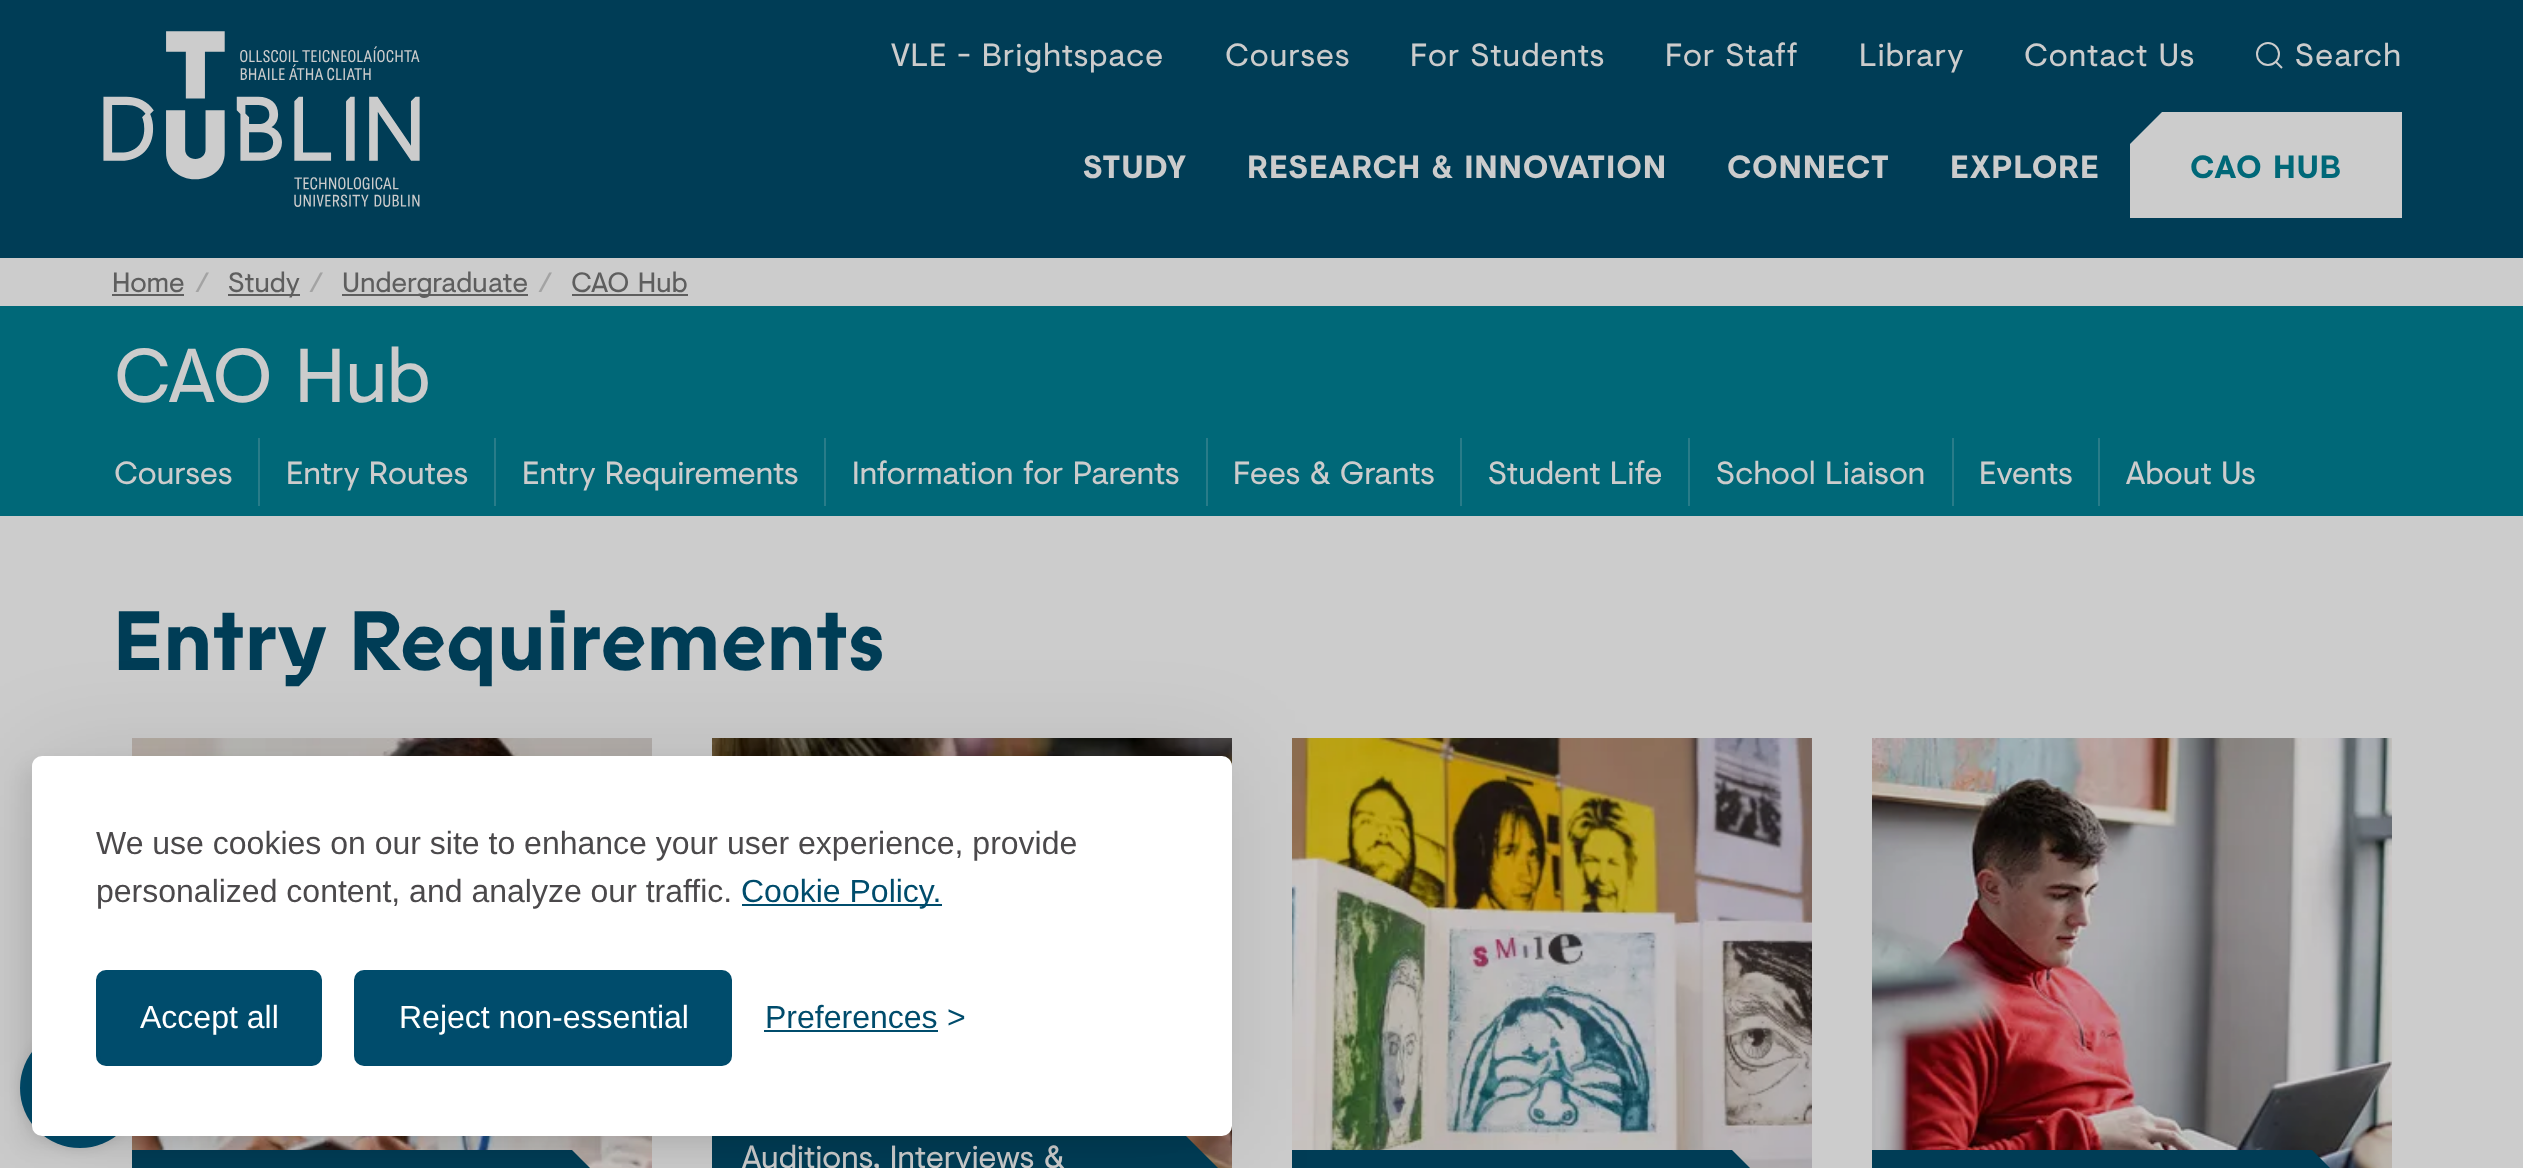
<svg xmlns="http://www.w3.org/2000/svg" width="2523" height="1168">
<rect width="100%" height="100%" fill="#ccc"/>
<rect width="2523" height="258" fill="#003d56"/>
<image x="103" y="31" width="317" height="176" href="media/1.png"/>
<text x="891" y="66" style="font-family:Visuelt;font-size:32px;letter-spacing:1px;fill:#ccc">VLE - Brightspace</text>
<text x="1225" y="66" style="font-family:Visuelt;font-size:32px;letter-spacing:1px;fill:#ccc">Courses</text>
<text x="1410" y="66" style="font-family:Visuelt;font-size:32px;letter-spacing:1px;fill:#ccc">For Students</text>
<text x="1665" y="66" style="font-family:Visuelt;font-size:32px;letter-spacing:1px;fill:#ccc">For Staff</text>
<text x="1859" y="66" style="font-family:Visuelt;font-size:32px;letter-spacing:1px;fill:#ccc">Library</text>
<text x="2024" y="66" style="font-family:Visuelt;font-size:32px;letter-spacing:1px;fill:#ccc">Contact Us</text>
<path d="M2276 62l6 6" fill="none" stroke="#ccc" stroke-width="2"/>
<circle cx="2268" cy="54" r="11" fill="none" stroke="#ccc" stroke-width="2"/>
<text x="2295" y="66" style="font-family:Visuelt;font-size:32px;letter-spacing:1px;fill:#ccc">Search</text>
<text x="1083" y="178" style="font-family:Visuelt;font-size:32px;font-weight:bold;letter-spacing:1px;fill:#ccc">STUDY</text>
<text x="1247" y="178" style="font-family:Visuelt;font-size:32px;font-weight:bold;letter-spacing:1px;fill:#ccc">RESEARCH &amp; INNOVATION</text>
<text x="1727" y="178" style="font-family:Visuelt;font-size:32px;font-weight:bold;letter-spacing:1px;fill:#ccc">CONNECT</text>
<text x="1950" y="178" style="font-family:Visuelt;font-size:32px;font-weight:bold;letter-spacing:1px;fill:#ccc">EXPLORE</text>
<path d="M2162 112l-32 32v74h272v-106z" fill="#ccc"/>
<text x="2190" y="178" style="font-family:Visuelt;font-size:32px;font-weight:bold;letter-spacing:1px;fill:#006878">CAO HUB</text>
<text x="112" y="292" style="font-family:Visuelt;font-size:28px;fill:#5e5e5e">Home</text>
<rect x="112" y="294" width="72" height="2" fill="#5e5e5e"/>
<text x="195" y="292" style="font-family:Visuelt;font-size:28px;fill:#a3a3a3">/</text>
<rect x="228" y="294" width="72" height="2" fill="#5e5e5e"/>
<text x="228" y="292" style="font-family:Visuelt;font-size:28px;fill:#5e5e5e">Study</text>
<text x="309" y="292" style="font-family:Visuelt;font-size:28px;fill:#a3a3a3">/</text>
<rect x="342" y="294" width="186" height="2" fill="#5e5e5e"/>
<text x="342" y="292" style="font-family:Visuelt;font-size:28px;fill:#5e5e5e">Undergraduate</text>
<text x="538" y="292" style="font-family:Visuelt;font-size:28px;fill:#a3a3a3">/</text>
<text x="571" y="292" style="font-family:Visuelt;font-size:28px;fill:#5e5e5e">CAO Hub</text>
<rect x="572" y="294" width="116" height="2" fill="#5e5e5e"/>
<rect y="306" width="2523" height="210" fill="#006878"/>
<text x="114" y="402" style="font-family:Visuelt;font-size:76px;fill:#ccc">CAO Hub</text>
<text x="114" y="484" style="font-family:Visuelt;font-size:32px;fill:#ccc">Courses</text>
<rect x="258" y="438" width="2" height="68" fill="#297c89"/>
<text x="286" y="484" style="font-family:Visuelt;font-size:32px;fill:#ccc">Entry Routes</text>
<rect x="494" y="438" width="2" height="68" fill="#297c89"/>
<text x="522" y="484" style="font-family:Visuelt;font-size:32px;fill:#ccc">Entry Requirements</text>
<rect x="824" y="438" width="2" height="68" fill="#297c89"/>
<text x="852" y="484" style="font-family:Visuelt;font-size:32px;fill:#ccc">Information for Parents</text>
<rect x="1206" y="438" width="2" height="68" fill="#297c89"/>
<text x="1233" y="484" style="font-family:Visuelt;font-size:32px;fill:#ccc">Fees &amp; Grants</text>
<rect x="1460" y="438" width="2" height="68" fill="#297c89"/>
<text x="1488" y="484" style="font-family:Visuelt;font-size:32px;fill:#ccc">Student Life</text>
<rect x="1688" y="438" width="2" height="68" fill="#297c89"/>
<text x="1716" y="484" style="font-family:Visuelt;font-size:32px;fill:#ccc">School Liaison</text>
<rect x="1952" y="438" width="2" height="68" fill="#297c89"/>
<text x="1979" y="484" style="font-family:Visuelt;font-size:32px;fill:#ccc">Events</text>
<rect x="2098" y="438" width="2" height="68" fill="#297c89"/>
<text x="2126" y="484" style="font-family:Visuelt;font-size:32px;fill:#ccc">About Us</text>
<text x="112" y="670" style="font-family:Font;font-size:84px;font-weight:bold;fill:#003d56">Entry Requirements</text>
<image x="132" y="738" width="520" height="430" href="media/2.png"/>
<path d="M132 1150v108h520v-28l-80-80z" fill="#003d56"/>
<image x="712" y="738" width="520" height="430" href="media/3.png"/>
<path d="M712 1102v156h520v-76l-80-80z" fill="#003d56"/>
<text x="742" y="1168" style="font-family:Visuelt;font-size:32px;fill:#ccc">Auditions, Interviews &amp;</text>
<image x="1292" y="738" width="520" height="430" href="media/4.png"/>
<path d="M1292 1150v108h520v-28l-80-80z" fill="#003d56"/>
<image x="1872" y="738" width="520" height="430" href="media/5.png"/>
<path d="M1872 1150v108h520v-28l-80-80z" fill="#003d56"/>
<rect x="20" y="1028" width="120" height="120" rx="60" fill="#0000001a" filter="blur(6px)"/>
<circle cx="80" cy="1088" r="60" fill="#004c6c"/>
<rect x="32" y="756" width="1200" height="380" rx="10" fill="#0000001a" filter="blur(50px)"/>
<rect x="22" y="766" width="1200" height="380" rx="10" fill="#00000012" filter="blur(10px)"/>
<rect x="32" y="756" width="1200" height="380" rx="10" fill="#fff"/>
<text x="96" y="854" style="font-family:Liberation Sans;font-size:32px;fill:#4b494b">We use cookies on our site to enhance your user experience, provide</text>
<text x="96" y="902" style="font-family:Liberation Sans;font-size:32px;fill:#4b494b">personalized content, and analyze our traffic.</text>
<rect x="742" y="904" width="200" height="2" fill="#004c6c"/>
<text x="741" y="902" style="font-family:Liberation Sans;font-size:32px;fill:#004c6c">Cookie Policy.</text>
<rect x="98" y="972" width="222" height="92" rx="8" fill="#004c6c" stroke="#004c6c" stroke-width="4"/>
<text x="140" y="1028" style="font-family:Liberation Sans;font-size:32px;fill:#fff">Accept all</text>
<rect x="356" y="972" width="374" height="92" rx="8" fill="#004c6c" stroke="#004c6c" stroke-width="4"/>
<text x="399" y="1028" style="font-family:Liberation Sans;font-size:32px;fill:#fff">Reject non-essential</text>
<text x="765" y="1028" style="font-family:Liberation Sans;font-size:32px;fill:#004c6c">Preferences</text>
<rect x="764" y="1030" width="174" height="2" fill="#004c6c"/>
<text x="947" y="1028" style="font-family:Liberation Sans;font-size:32px;fill:#004c6c">&gt;</text>
</svg>
